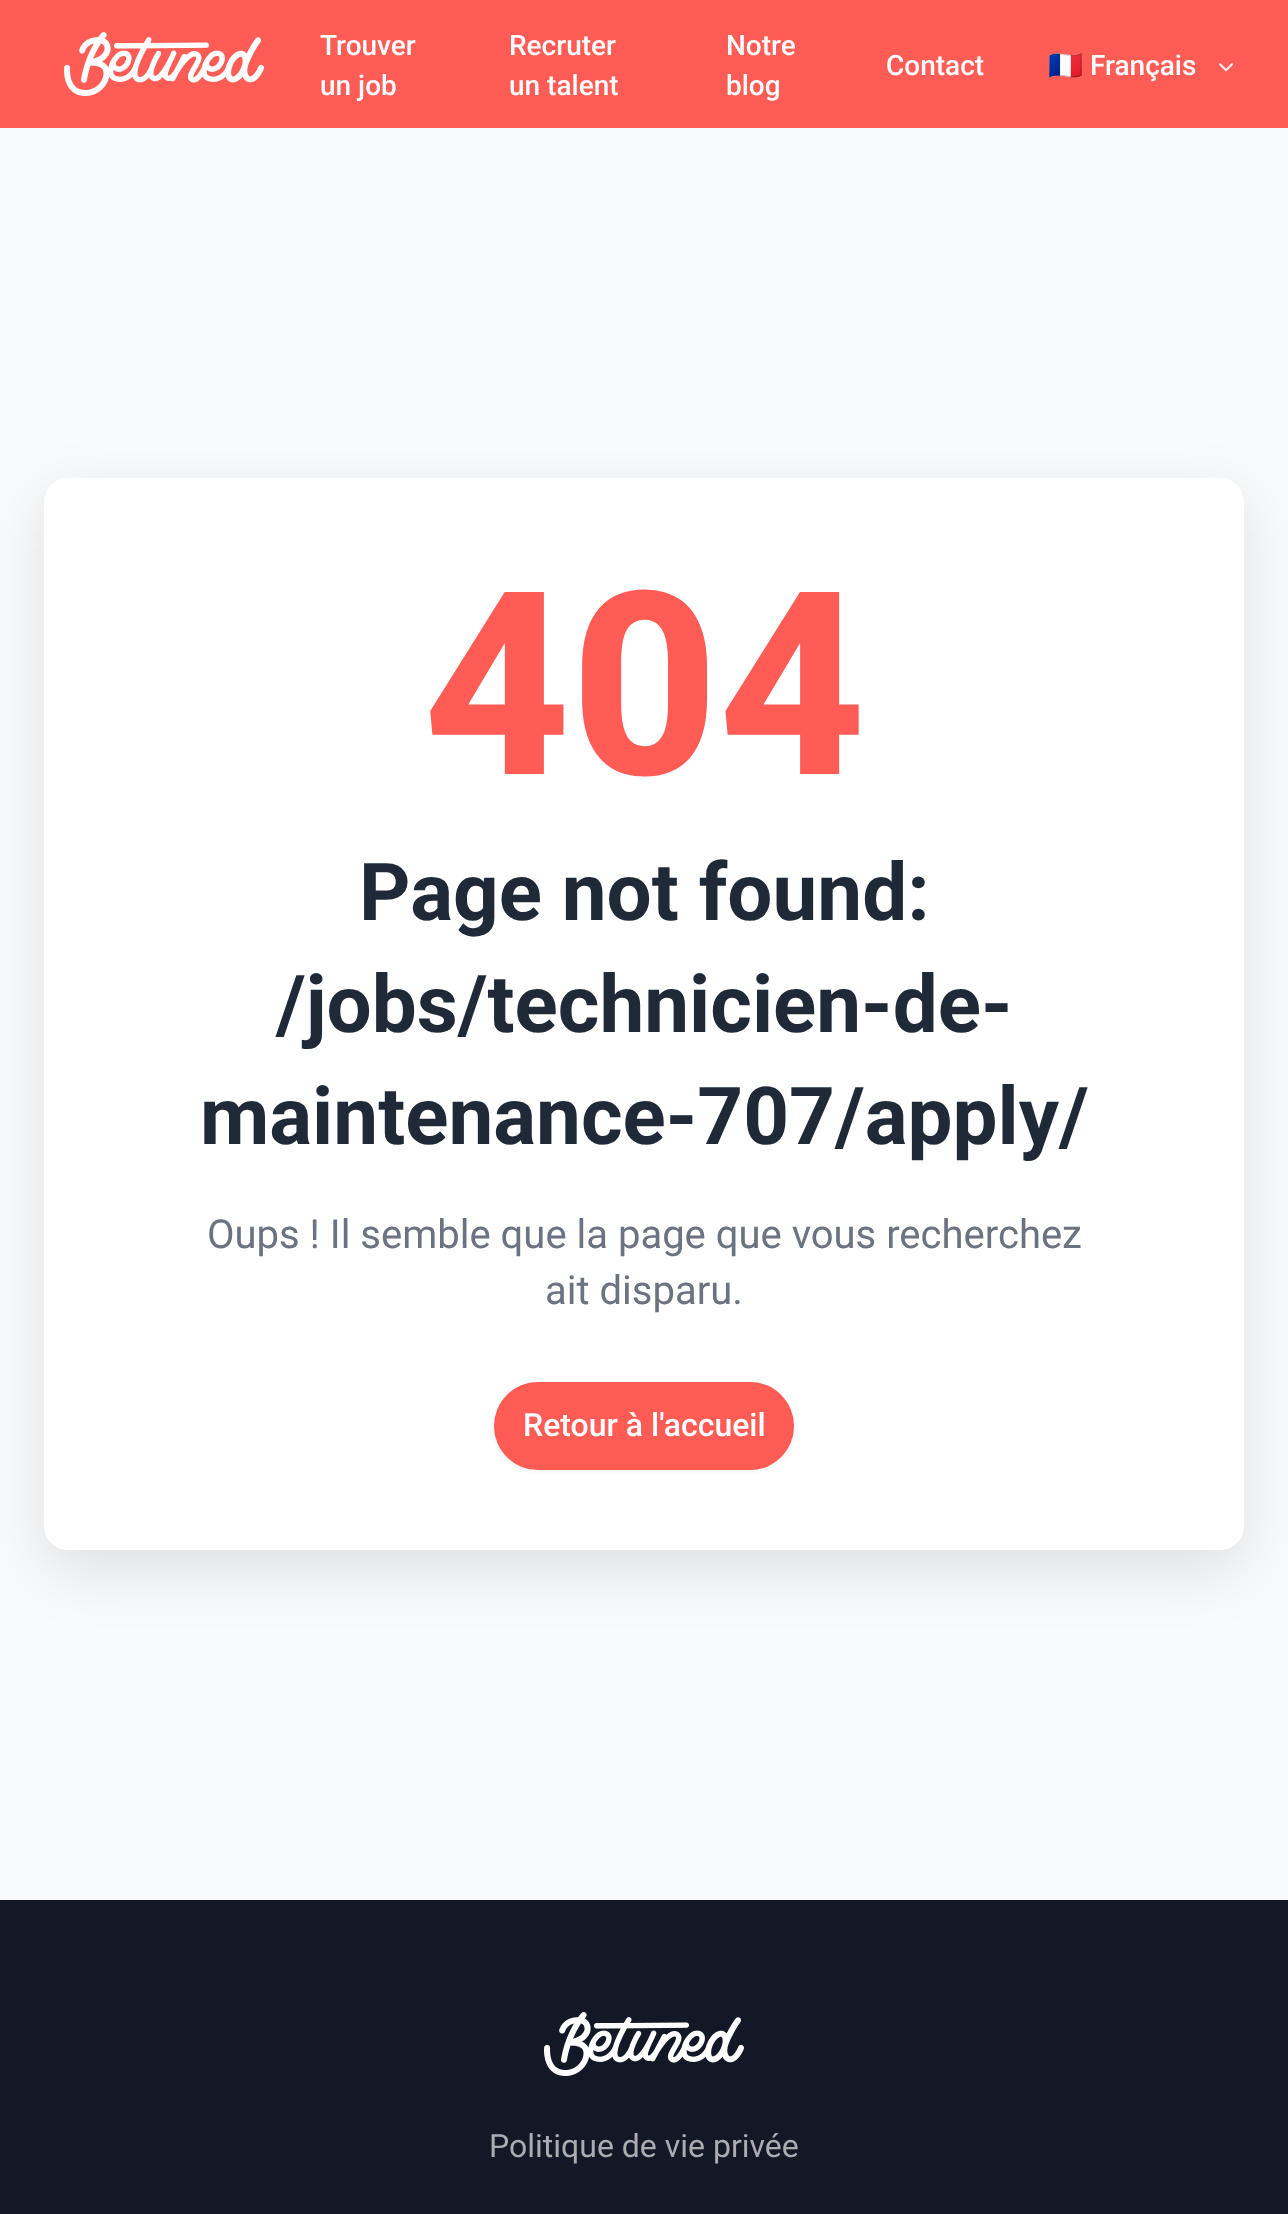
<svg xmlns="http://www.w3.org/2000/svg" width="1288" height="2214">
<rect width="100%" height="100%" fill="#f9fafb"/>
<rect width="1288" height="128" fill="#ff5c55"/>
<image x="64" y="32" width="200" height="64" href="media/1.png"/>
<text x="320" y="55" style="font-family:Roboto;font-size:28px;font-weight:500;fill:#fff">Trouver</text>
<text x="320" y="95" style="font-family:Roboto;font-size:28px;font-weight:500;fill:#fff">un job</text>
<text x="509" y="55" style="font-family:Roboto;font-size:28px;font-weight:500;fill:#fff">Recruter</text>
<text x="509" y="95" style="font-family:Roboto;font-size:28px;font-weight:500;fill:#fff">un talent</text>
<text x="726" y="55" style="font-family:Roboto;font-size:28px;font-weight:500;fill:#fff">Notre</text>
<text x="726" y="95" style="font-family:Roboto;font-size:28px;font-weight:500;fill:#fff">blog</text>
<text x="886" y="75" style="font-family:Roboto;font-size:28px;font-weight:500;fill:#fff">Contact</text>
<text x="1048" y="75" style="font-family:Noto Color Emoji;font-size:28px;fill:#fff">🇫🇷</text>
<text x="1090" y="75" style="font-family:Roboto;font-size:28px;font-weight:500;fill:#fff">Français</text>
<image x="1219" y="63" width="14" height="9" href="media/2.png"/>
<rect x="44" y="498" width="1200" height="1072" rx="24" fill="#0000001a" filter="blur(30px)"/>
<rect x="44" y="478" width="1200" height="1072" rx="24" fill="#fff"/>
<text x="423" y="774" style="font-family:Roboto;font-size:256px;font-weight:800;fill:#ff5c55">404</text>
<text x="359" y="920" style="font-family:Roboto;font-size:80px;font-weight:bold;fill:#1f2937">Page not found:</text>
<text x="276" y="1032" style="font-family:Roboto;font-size:80px;font-weight:bold;fill:#1f2937">/jobs/technicien-de-</text>
<text x="200" y="1144" style="font-family:Roboto;font-size:80px;font-weight:bold;fill:#1f2937">maintenance-707/apply/</text>
<text x="207" y="1248" style="font-family:Roboto;font-size:40px;fill:#6b7280">Oups ! Il semble que la page que vous recherchez</text>
<text x="545" y="1304" style="font-family:Roboto;font-size:40px;fill:#6b7280">ait disparu.</text>
<rect x="494" y="1384" width="300" height="88" rx="44" fill="#0000000d" filter="blur(2px)"/>
<rect x="494" y="1382" width="300" height="88" rx="44" fill="#ff5c55"/>
<rect x="495" y="1383" width="298" height="86" rx="43" fill="none" stroke="#ff5c5533" stroke-width="2"/>
<text x="523" y="1436" style="font-family:Roboto;font-size:32px;font-weight:500;fill:#fff">Retour à l'accueil</text>
<rect y="1900" width="1288" height="314" fill="#121826"/>
<image x="544" y="2012" width="200" height="64" href="media/3.png"/>
<text x="489" y="2157" style="font-family:Roboto;font-size:32px;fill:#aaacb1">Politique de vie privée</text>
</svg>
